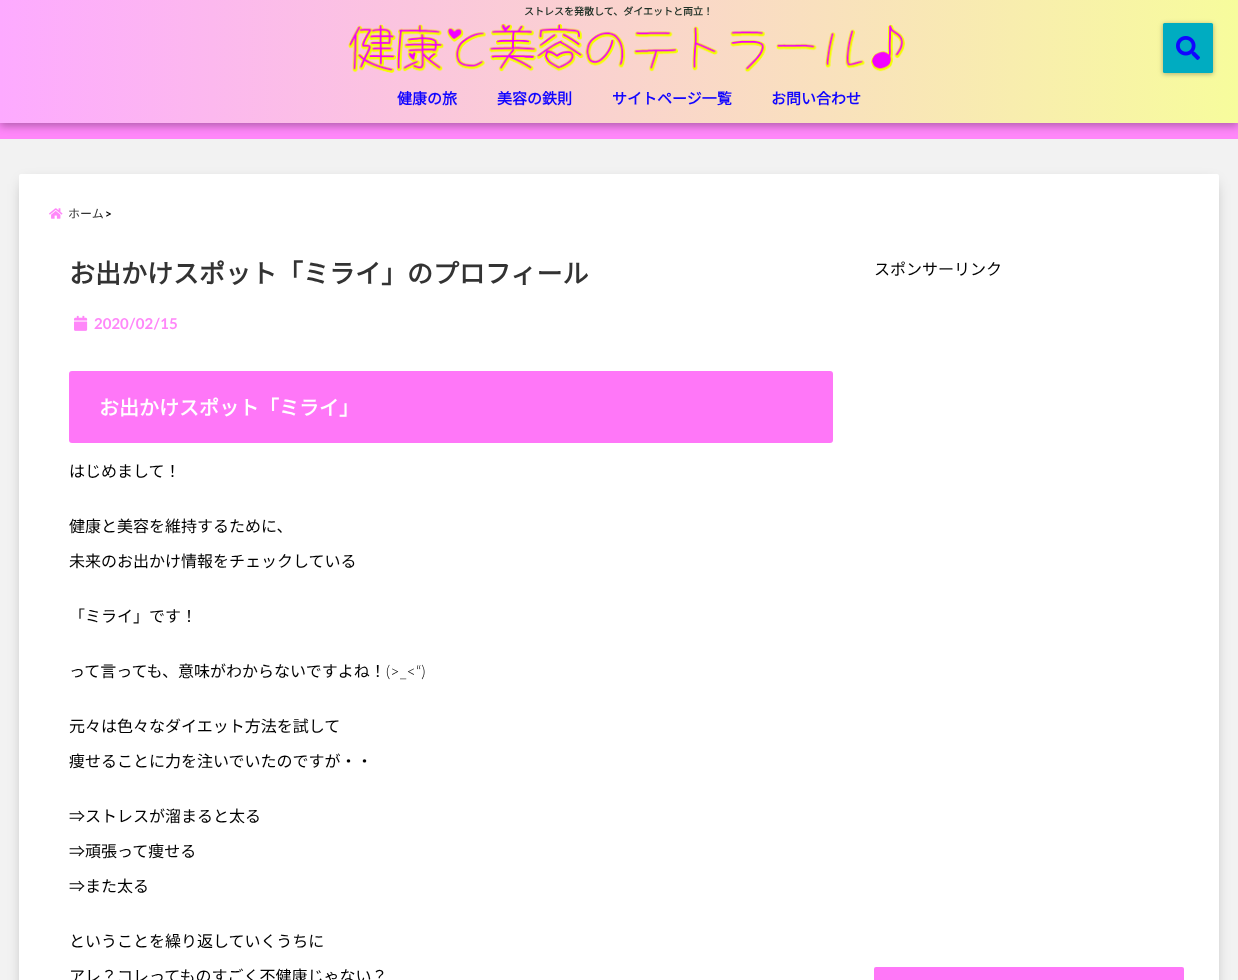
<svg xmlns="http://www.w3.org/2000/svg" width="1238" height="980">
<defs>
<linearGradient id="g1" gradientUnits="userSpaceOnUse" x1="0" y1="62" x2="1238" y2="61"><stop offset="0" stop-color="#fdaaff"/><stop offset="1" stop-color="#f7fc9c"/></linearGradient>
</defs>
<rect width="100%" height="100%" fill="#f2f2f2"/>
<rect y="123" width="1238" height="16" fill="#ff87f9"/>
<rect y="3" width="1238" height="123" fill="#0000004d" filter="blur(4px)"/>
<rect width="1238" height="123" fill="url(#g1)"/>
<text x="524" y="15" style="font-family:Noto Sans JP;font-size:10px;font-weight:bold;fill:#1f3026">ストレスを発散して、ダイエットと両立！</text>
<image x="348" y="23" width="557" height="50" href="media/1.png"/>
<rect x="1163" y="24" width="50" height="50" rx="1.5" fill="#0000004d" filter="blur(2.5px)"/>
<rect x="1163" y="23" width="50" height="50" rx="1.5" fill="#00acc1"/>
<image x="1176" y="36" width="24" height="24" href="media/2.png"/>
<text x="397" y="104" style="font-family:Noto Sans JP;font-size:15px;font-weight:bold;fill:#1105ff">健康の旅</text>
<text x="497" y="104" style="font-family:Noto Sans JP;font-size:15px;font-weight:bold;fill:#1105ff">美容の鉄則</text>
<text x="612" y="104" style="font-family:Noto Sans JP;font-size:15px;font-weight:bold;fill:#1105ff">サイトページ一覧</text>
<text x="771" y="104" style="font-family:Noto Sans JP;font-size:15px;font-weight:bold;fill:#1105ff">お問い合わせ</text>
<rect x="24" y="184" width="1190" height="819" fill="#0000004d" filter="blur(7.5px)"/>
<rect x="19" y="174" width="1200" height="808" rx="2" fill="#fff"/>
<image x="49" y="208" width="14" height="11" href="media/3.png"/>
<text x="68" y="218" style="font-family:Noto Sans JP;font-size:12px;font-weight:100;fill:#333">ホーム</text>
<text x="105" y="218" style="font-family:Lato;font-size:12px;font-weight:bold;fill:#000">&gt;</text>
<text x="69" y="283" style="font-family:Noto Sans JP;font-size:26px;font-weight:bold;fill:#333">お出かけスポット「ミライ」のプロフィール</text>
<image x="74" y="315" width="14" height="16" href="media/4.png"/>
<text x="94" y="329" style="font-family:Lato;font-size:15px;font-weight:bold;fill:#ff87f9">2020/02/15</text>
<rect x="69" y="371" width="764" height="72" rx="3" fill="#ff77f8"/>
<text x="99" y="415" style="font-family:Noto Sans JP;font-size:20px;font-weight:bold;fill:#fff">お出かけスポット「ミライ」</text>
<text x="69" y="477" style="font-family:Noto Sans JP;font-size:16px;font-weight:100;fill:#000">はじめまして！</text>
<text x="69" y="532" style="font-family:Noto Sans JP;font-size:16px;font-weight:100;fill:#000">健康と美容を維持するために、</text>
<text x="69" y="567" style="font-family:Noto Sans JP;font-size:16px;font-weight:100;fill:#000">未来のお出かけ情報をチェックしている</text>
<text x="69" y="622" style="font-family:Noto Sans JP;font-size:16px;font-weight:100;fill:#000">「ミライ」です！</text>
<text x="69" y="677" style="font-family:Noto Sans JP;font-size:16px;font-weight:100;fill:#000">って言っても、意味がわからないですよね！</text>
<text x="386" y="677" style="font-family:Lato;font-size:16px;font-weight:300;fill:#000">(&gt;_&lt;“)</text>
<text x="69" y="732" style="font-family:Noto Sans JP;font-size:16px;font-weight:100;fill:#000">元々は色々なダイエット方法を試して</text>
<text x="69" y="767" style="font-family:Noto Sans JP;font-size:16px;font-weight:100;fill:#000">痩せることに力を注いでいたのですが・・</text>
<text x="69" y="822" style="font-family:Noto Sans JP;font-size:16px;font-weight:100;fill:#000">⇒ストレスが溜まると太る</text>
<text x="69" y="857" style="font-family:Noto Sans JP;font-size:16px;font-weight:100;fill:#000">⇒頑張って痩せる</text>
<text x="69" y="892" style="font-family:Noto Sans JP;font-size:16px;font-weight:100;fill:#000">⇒また太る</text>
<text x="69" y="947" style="font-family:Noto Sans JP;font-size:16px;font-weight:100;fill:#000">ということを繰り返していくうちに</text>
<text x="69" y="982" style="font-family:Noto Sans JP;font-size:16px;font-weight:100;fill:#000">アレ？コレってものすごく不健康じゃない？</text>
<text x="874" y="275" style="font-family:Noto Sans JP;font-size:16px;font-weight:100;fill:#000">スポンサーリンク</text>
<rect x="874" y="967" width="310" height="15" rx="2" fill="#ff77f8"/>
</svg>
